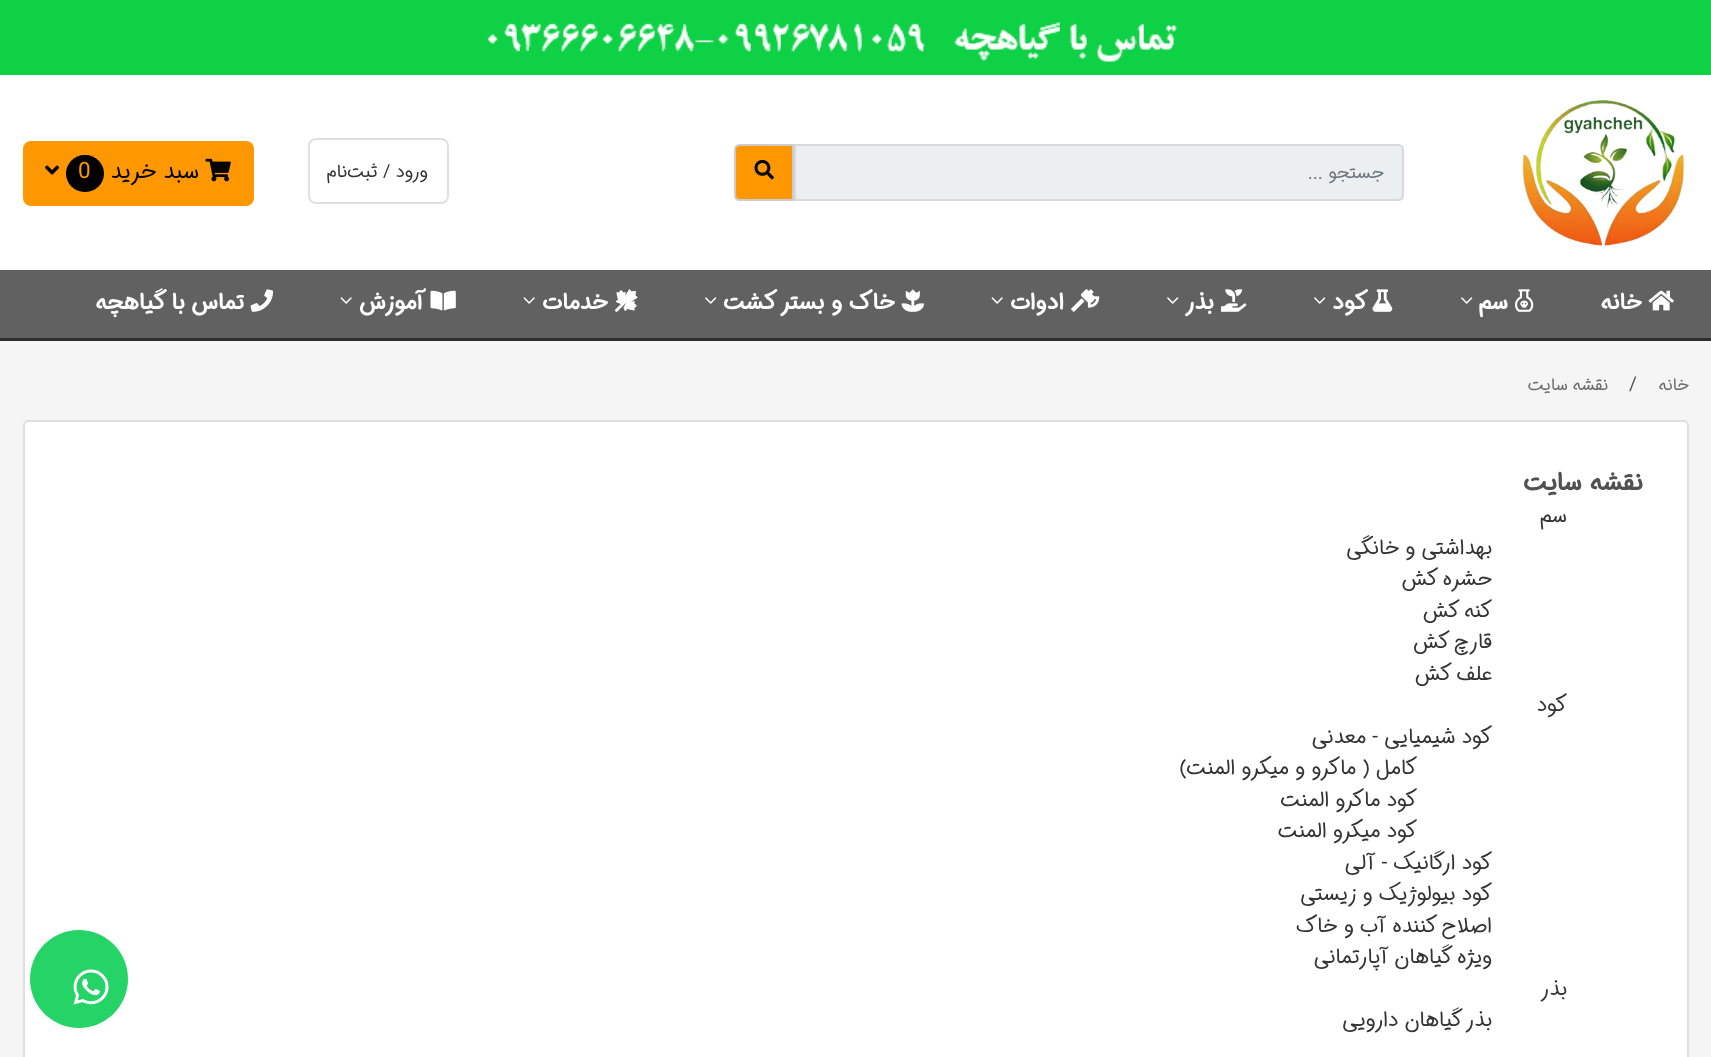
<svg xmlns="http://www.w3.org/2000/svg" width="1711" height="1057">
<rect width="100%" height="100%" fill="#f5f5f5"/>
<image x="0" y="0" width="1711" height="75" href="media/1.png"/>
<rect y="75" width="1711" height="195" fill="#fff"/>
<image x="1522" y="99" width="162" height="147" href="media/2.png"/>
<path d="M795 145h603c3 0 5 2 5 5v45c0 3-2 5-5 5h-603z" fill="#eceff1" stroke="#d5dadd" stroke-width="2"/>
<text x="1384" y="178" style="font-family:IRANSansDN;font-size:18px;direction:rtl;fill:#6c757d">جستجو ...</text>
<path d="M740 145h53v55h-53c-3 0-5-2-5-5v-45c0-3 2-5 5-5z" fill="#ff9800" stroke="#ccc" stroke-width="2"/>
<image x="754" y="159" width="20" height="21" href="media/3.png"/>
<rect x="309" y="139" width="139" height="64" rx="7" fill="none" stroke="#e0e0e2" stroke-width="2"/>
<text x="428" y="177" style="font-family:IRANSansDN;font-size:18px;direction:rtl;fill:#333">ورود / ثبت‌نام</text>
<rect x="23" y="141" width="231" height="65" rx="8" fill="#ff9800"/>
<image x="205" y="158" width="26" height="24" href="media/4.png"/>
<text x="199" y="178" style="font-family:IRANSansDN;font-size:22.5px;direction:rtl;fill:#000">سبد خرید</text>
<rect x="66" y="155" width="38" height="37" rx="18.5" fill="#000"/>
<text x="78" y="178" style="font-family:IRANSansDN;font-size:22.5px;fill:#ff9800">0</text>
<image x="45" y="165" width="15" height="10" href="media/5.png"/>
<rect y="270" width="1711" height="68" fill="#616161"/>
<rect y="338" width="1711" height="3" fill="#2e2e2e"/>
<image x="1648" y="290" width="26" height="21" href="media/6.png"/>
<text x="1642" y="309" style="font-family:IRANSansDN;font-size:22.5px;font-weight:bold;direction:rtl;fill:#fff">خانه</text>
<image x="1515" y="289" width="19" height="23" href="media/7.png"/>
<text x="1508" y="309" style="font-family:IRANSansDN;font-size:22.5px;font-weight:bold;direction:rtl;fill:#fff">سم</text>
<image x="1461" y="297" width="12" height="7" href="media/8.png"/>
<image x="1372" y="289" width="21" height="23" href="media/9.png"/>
<text x="1368" y="309" style="font-family:IRANSansDN;font-size:22.5px;font-weight:bold;direction:rtl;fill:#fff">کود</text>
<image x="1314" y="297" width="12" height="7" href="media/8.png"/>
<image x="1221" y="289" width="26" height="23" href="media/10.png"/>
<text x="1214" y="309" style="font-family:IRANSansDN;font-size:22.5px;font-weight:bold;direction:rtl;fill:#fff">بذر</text>
<image x="1167" y="297" width="12" height="7" href="media/8.png"/>
<image x="1071" y="289" width="29" height="23" href="media/11.png"/>
<text x="1064" y="309" style="font-family:IRANSansDN;font-size:22.5px;font-weight:bold;direction:rtl;fill:#fff">ادوات</text>
<image x="991" y="297" width="12" height="7" href="media/12.png"/>
<image x="901" y="289" width="23" height="23" href="media/13.png"/>
<text x="895" y="309" style="font-family:IRANSansDN;font-size:22.5px;font-weight:bold;direction:rtl;fill:#fff">خاک و بستر کشت</text>
<image x="705" y="297" width="12" height="7" href="media/8.png"/>
<image x="615" y="289" width="23" height="23" href="media/14.png"/>
<text x="608" y="309" style="font-family:IRANSansDN;font-size:22.5px;font-weight:bold;direction:rtl;fill:#fff">خدمات</text>
<image x="523" y="297" width="12" height="7" href="media/12.png"/>
<image x="430" y="290" width="26" height="21" href="media/15.png"/>
<text x="424" y="309" style="font-family:IRANSansDN;font-size:22.5px;font-weight:bold;direction:rtl;fill:#fff">آموزش</text>
<image x="340" y="297" width="12" height="7" href="media/12.png"/>
<image x="250" y="289" width="23" height="23" href="media/16.png"/>
<text x="244" y="309" style="font-family:IRANSansDN;font-size:22.5px;font-weight:bold;direction:rtl;fill:#fff">تماس با گیاهچه</text>
<text x="1689" y="390" style="font-family:IRANSansDN;font-size:17px;direction:rtl;fill:#6a6a6a">خانه</text>
<text x="1629" y="390" style="font-family:IRANSansDN;font-size:19px;fill:#515151">/</text>
<text x="1608" y="390" style="font-family:IRANSansDN;font-size:17px;direction:rtl;fill:#6a6a6a">نقشه سایت</text>
<rect x="24" y="421" width="1664" height="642" rx="4" fill="#fff" stroke="#dedede" stroke-width="2"/>
<text x="1643" y="490" style="font-family:IRANSansDN;font-size:25px;font-weight:bold;direction:rtl;fill:#515151">نقشه سایت</text>
<text x="1567" y="522" style="font-family:IRANSansDN;font-size:21px;direction:rtl;fill:#333">سم</text>
<text x="1492" y="554" style="font-family:IRANSansDN;font-size:21px;direction:rtl;fill:#333">بهداشتی و خانگی</text>
<text x="1492" y="585" style="font-family:IRANSansDN;font-size:21px;direction:rtl;fill:#333">حشره کش</text>
<text x="1492" y="617" style="font-family:IRANSansDN;font-size:21px;direction:rtl;fill:#333">کنه کش</text>
<text x="1492" y="648" style="font-family:IRANSansDN;font-size:21px;direction:rtl;fill:#333">قارچ کش</text>
<text x="1492" y="680" style="font-family:IRANSansDN;font-size:21px;direction:rtl;fill:#333">علف کش</text>
<text x="1567" y="711" style="font-family:IRANSansDN;font-size:21px;direction:rtl;fill:#333">کود</text>
<text x="1492" y="743" style="font-family:IRANSansDN;font-size:21px;direction:rtl;fill:#333">کود شیمیایی - معدنی</text>
<text x="1417" y="774" style="font-family:IRANSansDN;font-size:21px;direction:rtl;fill:#333">کامل ( ماکرو و میکرو المنت)</text>
<text x="1417" y="806" style="font-family:IRANSansDN;font-size:21px;direction:rtl;fill:#333">کود ماکرو المنت</text>
<text x="1417" y="837" style="font-family:IRANSansDN;font-size:21px;direction:rtl;fill:#333">کود میکرو المنت</text>
<text x="1492" y="869" style="font-family:IRANSansDN;font-size:21px;direction:rtl;fill:#333">کود ارگانیک - آلی</text>
<text x="1492" y="900" style="font-family:IRANSansDN;font-size:21px;direction:rtl;fill:#333">کود بیولوژیک و زیستی</text>
<text x="1492" y="932" style="font-family:IRANSansDN;font-size:21px;direction:rtl;fill:#333">اصلاح کننده آب و خاک</text>
<text x="1492" y="963" style="font-family:IRANSansDN;font-size:21px;direction:rtl;fill:#333">ویژه گیاهان آپارتمانی</text>
<text x="1567" y="995" style="font-family:IRANSansDN;font-size:21px;direction:rtl;fill:#333">بذر</text>
<text x="1492" y="1026" style="font-family:IRANSansDN;font-size:21px;direction:rtl;fill:#333">بذر گیاهان دارویی</text>
<circle cx="79" cy="979" r="49" fill="#25d366"/>
<image x="73" y="969" width="36" height="36" href="media/17.png"/>
</svg>
